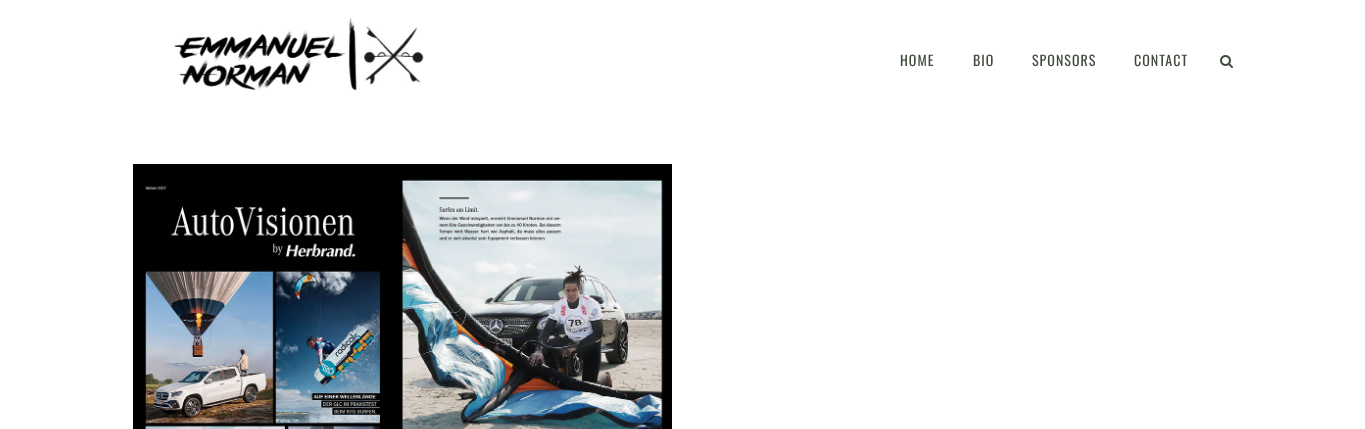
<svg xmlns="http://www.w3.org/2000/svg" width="1365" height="429">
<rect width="100%" height="100%" fill="#fff"/>
<image x="174" y="18" width="250" height="73" href="media/1.png"/>
<text x="900" y="66" style="font-family:Oswald;font-size:14px;letter-spacing:1px;fill:#414a3b">HOME</text>
<text x="973" y="66" style="font-family:Oswald;font-size:14px;letter-spacing:1px;fill:#414a3b">BIO</text>
<text x="1032" y="66" style="font-family:Oswald;font-size:14px;letter-spacing:1px;fill:#414a3b">SPONSORS</text>
<text x="1134" y="66" style="font-family:Oswald;font-size:14px;letter-spacing:1px;fill:#414a3b">CONTACT</text>
<image x="1220" y="55" width="13" height="13" href="media/2.png"/>
<image x="133" y="164" width="539" height="265" href="media/3.png"/>
</svg>
